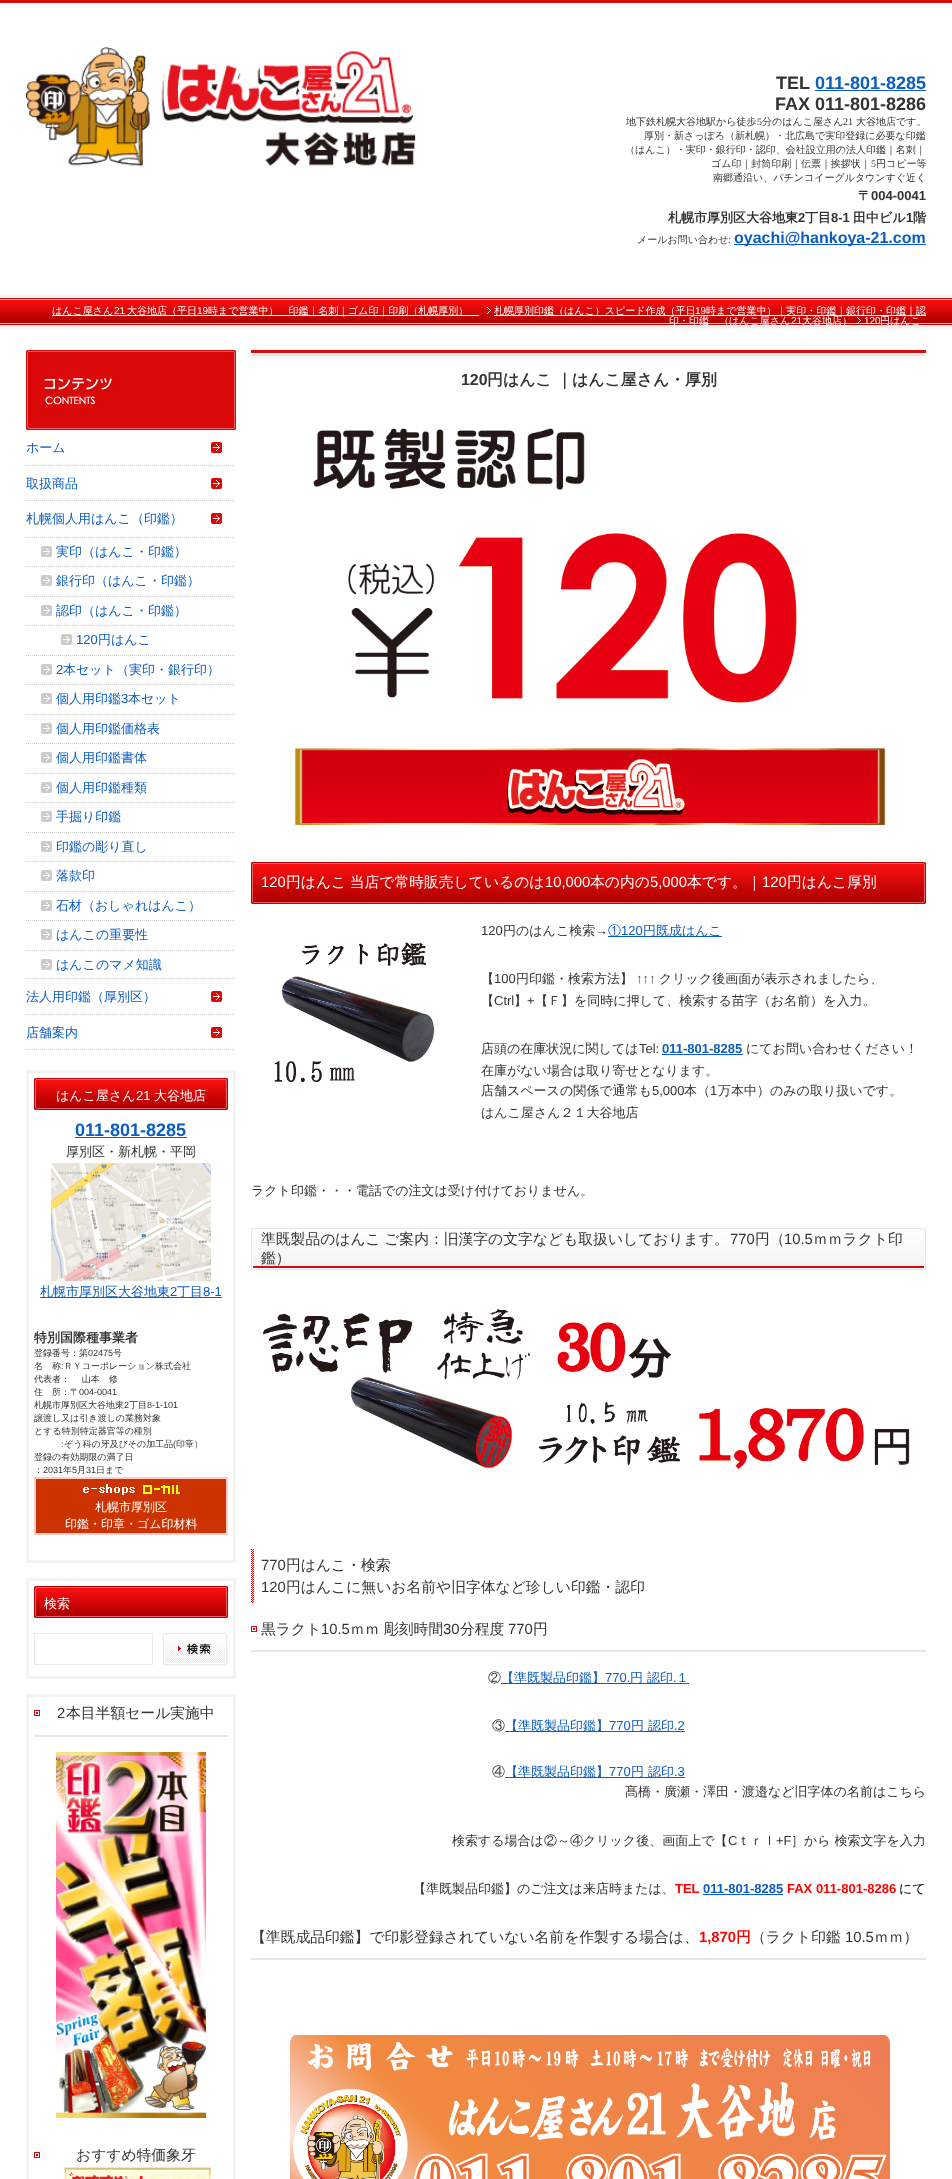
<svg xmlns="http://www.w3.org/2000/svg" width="952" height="2179">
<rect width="100%" height="100%" fill="#fff"/>
<rect width="952" height="3" fill="#da0909"/>
<image x="26" y="47" width="390" height="120" href="media/1.png"/>
<text x="776" y="89" style="font-family:Liberation Sans;font-size:18px;font-weight:bold;fill:#333">TEL</text>
<text x="815" y="89" style="font-family:Liberation Sans;font-size:18px;font-weight:bold;fill:#0c5dc2">011-801-8285</text>
<rect x="815" y="90" width="111" height="1" fill="#0c5dc2"/>
<text x="775" y="110" style="font-family:Liberation Sans;font-size:18px;font-weight:bold;fill:#333">FAX 011-801-8286</text>
<text x="626" y="125" style="font-family:WenQuanYi Zen Hei;font-size:10px;font-weight:500;fill:#333">地下鉄札幌大谷地駅から徒歩</text>
<text x="757" y="125" style="font-family:Liberation Serif;font-size:10px;fill:#333">5</text>
<text x="762" y="125" style="font-family:WenQuanYi Zen Hei;font-size:10px;font-weight:500;fill:#333">分のはんこ屋さん</text>
<text x="843" y="125" style="font-family:Liberation Serif;font-size:10px;fill:#333">21</text>
<text x="856" y="125" style="font-family:WenQuanYi Zen Hei;font-size:10px;font-weight:500;fill:#333">大谷地店です。</text>
<text x="644" y="139" style="font-family:WenQuanYi Zen Hei;font-size:10px;font-weight:500;fill:#333">厚別・新さっぽろ（新札幌）・北広島で実印登録に必要な印鑑</text>
<text x="625" y="153" style="font-family:WenQuanYi Zen Hei;font-size:10px;font-weight:500;fill:#333">（はんこ）・実印・銀行印・認印、会社設立用の法人印鑑｜名刺｜</text>
<text x="711" y="167" style="font-family:WenQuanYi Zen Hei;font-size:10px;font-weight:500;fill:#333">ゴム印｜封筒印刷｜伝票｜挨拶状｜</text>
<text x="871" y="167" style="font-family:Liberation Serif;font-size:10px;fill:#333">5</text>
<text x="876" y="167" style="font-family:WenQuanYi Zen Hei;font-size:10px;font-weight:500;fill:#333">円コピー等</text>
<text x="713" y="181" style="font-family:WenQuanYi Zen Hei;font-size:10px;font-weight:500;fill:#333">南郷通沿い、パチンコイーグルタウンすぐ近く</text>
<text x="858" y="200" style="font-family:WenQuanYi Zen Hei;font-size:13px;font-weight:bold;fill:#333">〒</text>
<text x="871" y="200" style="font-family:Liberation Sans;font-size:13px;font-weight:bold;fill:#333">004-0041</text>
<text x="668" y="222" style="font-family:WenQuanYi Zen Hei;font-size:13px;font-weight:bold;fill:#333">札幌市厚別区大谷地東</text>
<text x="798" y="222" style="font-family:Liberation Sans;font-size:13px;font-weight:bold;fill:#333">2</text>
<text x="805" y="222" style="font-family:WenQuanYi Zen Hei;font-size:13px;font-weight:bold;fill:#333">丁目</text>
<text x="831" y="222" style="font-family:Liberation Sans;font-size:13px;font-weight:bold;fill:#333">8-1</text>
<text x="853" y="222" style="font-family:WenQuanYi Zen Hei;font-size:13px;font-weight:bold;fill:#333">田中ビル</text>
<text x="906" y="222" style="font-family:Liberation Sans;font-size:13px;font-weight:bold;fill:#333">1</text>
<text x="913" y="222" style="font-family:WenQuanYi Zen Hei;font-size:13px;font-weight:bold;fill:#333">階</text>
<text x="637" y="243" style="font-family:WenQuanYi Zen Hei;font-size:10px;font-weight:500;fill:#333">メールお問い合わせ</text>
<text x="728" y="243" style="font-family:Liberation Sans;font-size:10px;fill:#333">:</text>
<rect x="734" y="244" width="192" height="1" fill="#0c5dc2"/>
<text x="734" y="243" style="font-family:Liberation Sans;font-size:16px;font-weight:bold;fill:#0c5dc2">oyachi@hankoya-21.com</text>
<image x="0" y="294" width="952" height="36" href="media/2.png"/>
<rect x="52" y="315" width="427" height="1" fill="#fff"/>
<text x="52" y="314" style="font-family:WenQuanYi Zen Hei;font-size:10px;font-weight:500;fill:#fff">はんこ屋さん</text>
<text x="114" y="314" style="font-family:Liberation Sans;font-size:10px;fill:#fff">21</text>
<text x="127" y="314" style="font-family:WenQuanYi Zen Hei;font-size:10px;font-weight:500;fill:#fff">大谷地店（平日</text>
<text x="197" y="314" style="font-family:Liberation Sans;font-size:10px;fill:#fff">19</text>
<text x="208" y="314" style="font-family:WenQuanYi Zen Hei;font-size:10px;font-weight:500;fill:#fff">時まで営業中）　印鑑｜名刺｜ゴム印｜印刷（札幌厚別）</text>
<image x="487" y="307" width="4" height="7" href="media/3.png"/>
<rect x="494" y="315" width="432" height="1" fill="#fff"/>
<text x="494" y="314" style="font-family:WenQuanYi Zen Hei;font-size:10px;font-weight:500;fill:#fff">札幌厚別印鑑（はんこ）スピード作成（平日</text>
<text x="695" y="314" style="font-family:Liberation Sans;font-size:10px;fill:#fff">19</text>
<text x="706" y="314" style="font-family:WenQuanYi Zen Hei;font-size:10px;font-weight:500;fill:#fff">時まで営業中）｜実印・印鑑｜銀行印・印鑑｜認</text>
<rect x="669" y="325" width="183" height="1" fill="#fff"/>
<text x="669" y="324" style="font-family:WenQuanYi Zen Hei;font-size:10px;font-weight:500;fill:#fff">印・印鑑　（はんこ屋さん</text>
<text x="791" y="324" style="font-family:Liberation Sans;font-size:10px;fill:#fff">21</text>
<text x="802" y="324" style="font-family:WenQuanYi Zen Hei;font-size:10px;font-weight:500;fill:#fff">大谷地店）</text>
<image x="857" y="317" width="4" height="7" href="media/4.png"/>
<text x="864" y="324" style="font-family:Liberation Sans;font-size:10px;fill:#fff">120</text>
<text x="880" y="324" style="font-family:WenQuanYi Zen Hei;font-size:10px;font-weight:500;fill:#fff">円はんこ</text>
<image x="26" y="350" width="210" height="80" href="media/5.png"/>
<image x="26" y="465" width="209" height="1" href="media/6.png"/>
<image x="211" y="442" width="11" height="11" href="media/7.png"/>
<text x="26" y="452" style="font-family:WenQuanYi Zen Hei;font-size:13px;font-weight:500;fill:#0c5dc2">ホーム</text>
<image x="26" y="500" width="209" height="1" href="media/6.png"/>
<image x="211" y="478" width="11" height="11" href="media/7.png"/>
<text x="26" y="488" style="font-family:WenQuanYi Zen Hei;font-size:13px;font-weight:500;fill:#0c5dc2">取扱商品</text>
<image x="26" y="978" width="209" height="1" href="media/6.png"/>
<image x="211" y="513" width="11" height="11" href="media/7.png"/>
<text x="26" y="523" style="font-family:WenQuanYi Zen Hei;font-size:13px;font-weight:500;fill:#0c5dc2">札幌個人用はんこ（印鑑）</text>
<image x="26" y="537" width="209" height="1" href="media/6.png"/>
<image x="41" y="546" width="11" height="11" href="media/8.png"/>
<text x="56" y="556" style="font-family:WenQuanYi Zen Hei;font-size:13px;font-weight:500;fill:#0c5dc2">実印（はんこ・印鑑）</text>
<image x="26" y="566" width="209" height="1" href="media/6.png"/>
<image x="41" y="575" width="11" height="11" href="media/8.png"/>
<text x="56" y="585" style="font-family:WenQuanYi Zen Hei;font-size:13px;font-weight:500;fill:#0c5dc2">銀行印（はんこ・印鑑）</text>
<image x="26" y="596" width="209" height="1" href="media/6.png"/>
<image x="41" y="605" width="11" height="11" href="media/8.png"/>
<text x="56" y="615" style="font-family:WenQuanYi Zen Hei;font-size:13px;font-weight:500;fill:#0c5dc2">認印（はんこ・印鑑）</text>
<image x="26" y="625" width="209" height="1" href="media/6.png"/>
<image x="61" y="634" width="11" height="11" href="media/8.png"/>
<text x="76" y="644" style="font-family:Liberation Sans;font-size:13px;fill:#0c5dc2">120</text>
<text x="98" y="644" style="font-family:WenQuanYi Zen Hei;font-size:13px;font-weight:500;fill:#0c5dc2">円はんこ</text>
<image x="26" y="655" width="209" height="1" href="media/6.png"/>
<image x="41" y="664" width="11" height="11" href="media/8.png"/>
<text x="56" y="674" style="font-family:Liberation Sans;font-size:13px;fill:#0c5dc2">2</text>
<text x="63" y="674" style="font-family:WenQuanYi Zen Hei;font-size:13px;font-weight:500;fill:#0c5dc2">本セット（実印・銀行印）</text>
<image x="26" y="684" width="209" height="1" href="media/6.png"/>
<image x="41" y="693" width="11" height="11" href="media/8.png"/>
<text x="56" y="703" style="font-family:WenQuanYi Zen Hei;font-size:13px;font-weight:500;fill:#0c5dc2">個人用印鑑</text>
<text x="121" y="703" style="font-family:Liberation Sans;font-size:13px;fill:#0c5dc2">3</text>
<text x="128" y="703" style="font-family:WenQuanYi Zen Hei;font-size:13px;font-weight:500;fill:#0c5dc2">本セット</text>
<image x="26" y="714" width="209" height="1" href="media/6.png"/>
<image x="41" y="723" width="11" height="11" href="media/8.png"/>
<text x="56" y="733" style="font-family:WenQuanYi Zen Hei;font-size:13px;font-weight:500;fill:#0c5dc2">個人用印鑑価格表</text>
<image x="26" y="743" width="209" height="1" href="media/6.png"/>
<image x="41" y="752" width="11" height="11" href="media/8.png"/>
<text x="56" y="762" style="font-family:WenQuanYi Zen Hei;font-size:13px;font-weight:500;fill:#0c5dc2">個人用印鑑書体</text>
<image x="26" y="773" width="209" height="1" href="media/6.png"/>
<image x="41" y="782" width="11" height="11" href="media/8.png"/>
<text x="56" y="792" style="font-family:WenQuanYi Zen Hei;font-size:13px;font-weight:500;fill:#0c5dc2">個人用印鑑種類</text>
<image x="26" y="802" width="209" height="1" href="media/6.png"/>
<image x="41" y="811" width="11" height="11" href="media/8.png"/>
<text x="56" y="821" style="font-family:WenQuanYi Zen Hei;font-size:13px;font-weight:500;fill:#0c5dc2">手掘り印鑑</text>
<image x="26" y="832" width="209" height="1" href="media/6.png"/>
<image x="41" y="841" width="11" height="11" href="media/8.png"/>
<text x="56" y="851" style="font-family:WenQuanYi Zen Hei;font-size:13px;font-weight:500;fill:#0c5dc2">印鑑の彫り直し</text>
<image x="26" y="861" width="209" height="1" href="media/6.png"/>
<image x="41" y="870" width="11" height="11" href="media/8.png"/>
<text x="56" y="880" style="font-family:WenQuanYi Zen Hei;font-size:13px;font-weight:500;fill:#0c5dc2">落款印</text>
<image x="26" y="891" width="209" height="1" href="media/6.png"/>
<image x="41" y="900" width="11" height="11" href="media/8.png"/>
<text x="56" y="910" style="font-family:WenQuanYi Zen Hei;font-size:13px;font-weight:500;fill:#0c5dc2">石材（おしゃれはんこ）</text>
<image x="26" y="920" width="209" height="1" href="media/6.png"/>
<image x="41" y="929" width="11" height="11" href="media/8.png"/>
<text x="56" y="939" style="font-family:WenQuanYi Zen Hei;font-size:13px;font-weight:500;fill:#0c5dc2">はんこの重要性</text>
<image x="26" y="950" width="209" height="1" href="media/6.png"/>
<image x="41" y="959" width="11" height="11" href="media/8.png"/>
<text x="56" y="969" style="font-family:WenQuanYi Zen Hei;font-size:13px;font-weight:500;fill:#0c5dc2">はんこのマメ知識</text>
<image x="26" y="1014" width="209" height="1" href="media/6.png"/>
<image x="211" y="991" width="11" height="11" href="media/7.png"/>
<text x="26" y="1001" style="font-family:WenQuanYi Zen Hei;font-size:13px;font-weight:500;fill:#0c5dc2">法人用印鑑（厚別区）</text>
<image x="26" y="1049" width="209" height="1" href="media/6.png"/>
<image x="211" y="1027" width="11" height="11" href="media/7.png"/>
<text x="26" y="1037" style="font-family:WenQuanYi Zen Hei;font-size:13px;font-weight:500;fill:#0c5dc2">店舗案内</text>
<rect x="27.5" y="1071.5" width="207" height="490" fill="none" stroke="#f3f3f3" stroke-width="3"/>
<image x="34" y="1078" width="194" height="32" href="media/9.png"/>
<text x="56" y="1100" style="font-family:WenQuanYi Zen Hei;font-size:13px;font-weight:500;fill:#fff">はんこ屋さん</text>
<text x="136" y="1100" style="font-family:Liberation Sans;font-size:13px;fill:#fff">21</text>
<text x="154" y="1100" style="font-family:WenQuanYi Zen Hei;font-size:13px;font-weight:500;fill:#fff">大谷地店</text>
<text x="75" y="1136" style="font-family:Liberation Sans;font-size:18px;font-weight:bold;fill:#0c5dc2">011-801-8285</text>
<rect x="75" y="1137" width="112" height="1" fill="#0c5dc2"/>
<text x="66" y="1156" style="font-family:WenQuanYi Zen Hei;font-size:13px;font-weight:500;fill:#333">厚別区・新札幌・平岡</text>
<image x="51" y="1163" width="160" height="118" href="media/10.png"/>
<rect x="40" y="1297" width="182" height="1" fill="#0c5dc2"/>
<text x="40" y="1296" style="font-family:WenQuanYi Zen Hei;font-size:13px;font-weight:500;fill:#0c5dc2">札幌市厚別区大谷地東</text>
<text x="170" y="1296" style="font-family:Liberation Sans;font-size:13px;fill:#0c5dc2">2</text>
<text x="177" y="1296" style="font-family:WenQuanYi Zen Hei;font-size:13px;font-weight:500;fill:#0c5dc2">丁目</text>
<text x="203" y="1296" style="font-family:Liberation Sans;font-size:13px;fill:#0c5dc2">8-1</text>
<text x="34" y="1342" style="font-family:WenQuanYi Zen Hei;font-size:13px;font-weight:bold;fill:#333">特別国際種事業者</text>
<text x="34" y="1356" style="font-family:WenQuanYi Zen Hei;font-size:9px;font-weight:500;fill:#333">登録番号：第</text>
<text x="88" y="1356" style="font-family:Liberation Sans;font-size:9px;fill:#333">02475</text>
<text x="113" y="1356" style="font-family:WenQuanYi Zen Hei;font-size:9px;font-weight:500;fill:#333">号</text>
<text x="34" y="1369" style="font-family:WenQuanYi Zen Hei;font-size:9px;font-weight:500;fill:#333">名　称 ＲＹコーポレーション株式会社</text>
<text x="61" y="1369" style="font-family:Liberation Sans;font-size:9px;fill:#333">:</text>
<text x="34" y="1382" style="font-family:WenQuanYi Zen Hei;font-size:9px;font-weight:500;fill:#333">代表者：　 山本　修</text>
<text x="34" y="1395" style="font-family:WenQuanYi Zen Hei;font-size:9px;font-weight:500;fill:#333">住　所：〒</text>
<text x="79" y="1395" style="font-family:Liberation Sans;font-size:9px;fill:#333">004-0041</text>
<text x="34" y="1408" style="font-family:WenQuanYi Zen Hei;font-size:9px;font-weight:500;fill:#333">札幌市厚別区大谷地東</text>
<text x="124" y="1408" style="font-family:Liberation Sans;font-size:9px;fill:#333">2</text>
<text x="129" y="1408" style="font-family:WenQuanYi Zen Hei;font-size:9px;font-weight:500;fill:#333">丁目</text>
<text x="147" y="1408" style="font-family:Liberation Sans;font-size:9px;fill:#333">8-1-101</text>
<text x="34" y="1421" style="font-family:WenQuanYi Zen Hei;font-size:9px;font-weight:500;fill:#333">譲渡し又は引き渡しの業務対象</text>
<text x="34" y="1434" style="font-family:WenQuanYi Zen Hei;font-size:9px;font-weight:500;fill:#333">とする特別特定器官等の種別</text>
<text x="64" y="1447" style="font-family:WenQuanYi Zen Hei;font-size:9px;font-weight:500;fill:#333">ぞう科の牙及びその加工品 印章）</text>
<text x="61" y="1447" style="font-family:Liberation Sans;font-size:9px;fill:#333">:</text>
<text x="173" y="1447" style="font-family:Liberation Sans;font-size:9px;fill:#333">(</text>
<text x="34" y="1460" style="font-family:WenQuanYi Zen Hei;font-size:9px;font-weight:500;fill:#333">登録の有効期限の満了日</text>
<text x="34" y="1473" style="font-family:WenQuanYi Zen Hei;font-size:9px;font-weight:500;fill:#333">：</text>
<text x="43" y="1473" style="font-family:Liberation Sans;font-size:9px;fill:#333">2031</text>
<text x="63" y="1473" style="font-family:WenQuanYi Zen Hei;font-size:9px;font-weight:500;fill:#333">年</text>
<text x="72" y="1473" style="font-family:Liberation Sans;font-size:9px;fill:#333">5</text>
<text x="77" y="1473" style="font-family:WenQuanYi Zen Hei;font-size:9px;font-weight:500;fill:#333">月</text>
<text x="86" y="1473" style="font-family:Liberation Sans;font-size:9px;fill:#333">31</text>
<text x="96" y="1473" style="font-family:WenQuanYi Zen Hei;font-size:9px;font-weight:500;fill:#333">日まで</text>
<rect x="34" y="1477" width="194" height="2" fill="#fcc"/>
<rect x="226" y="1477" width="2" height="58" fill="#fcc"/>
<rect x="34" y="1533" width="194" height="2" fill="#fcc"/>
<rect x="34" y="1477" width="2" height="58" fill="#fcc"/>
<rect x="36" y="1479" width="190" height="54" fill="#c30"/>
<image x="83" y="1484" width="97" height="11" href="media/11.png"/>
<text x="95" y="1511" style="font-family:WenQuanYi Zen Hei;font-size:12px;font-weight:500;fill:#fff">札幌市厚別区</text>
<text x="65" y="1528" style="font-family:WenQuanYi Zen Hei;font-size:12px;font-weight:500;fill:#fff">印鑑・印章・ゴム印材料</text>
<rect x="27.5" y="1579.5" width="207" height="98" fill="none" stroke="#f3f3f3" stroke-width="3"/>
<image x="34" y="1586" width="194" height="32" href="media/9.png"/>
<text x="44" y="1608" style="font-family:WenQuanYi Zen Hei;font-size:13px;font-weight:500;fill:#fff">検索</text>
<rect x="34.5" y="1633.5" width="118" height="31" fill="none" stroke="#eaeaea"/>
<image x="163" y="1633" width="65" height="33" href="media/12.png"/>
<rect x="27.5" y="1695.5" width="207" height="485" fill="none" stroke="#f3f3f3" stroke-width="3"/>
<image x="34" y="1710" width="6" height="6" href="media/13.png"/>
<rect x="34" y="1735" width="194" height="2" fill="#e6e6e6"/>
<text x="57" y="1718" style="font-family:Liberation Sans;font-size:14.8px;fill:#333">2</text>
<text x="66" y="1718" style="font-family:WenQuanYi Zen Hei;font-size:14.8px;font-weight:500;fill:#333">本目半額セール実施中</text>
<image x="56" y="1752" width="150" height="366" href="media/14.png"/>
<image x="34" y="2152" width="6" height="6" href="media/13.png"/>
<text x="76" y="2160" style="font-family:WenQuanYi Zen Hei;font-size:14.8px;font-weight:500;fill:#333">おすすめ特価象牙</text>
<image x="64" y="2167" width="147" height="12" href="media/15.png"/>
<image x="251" y="350" width="675" height="9" href="media/16.png"/>
<text x="461" y="385" style="font-family:Liberation Sans;font-size:15.9px;font-weight:bold;fill:#333">120</text>
<text x="487" y="385" style="font-family:WenQuanYi Zen Hei;font-size:15.9px;font-weight:bold;fill:#333">円はんこ ｜はんこ屋さん・厚別</text>
<image x="294" y="428" width="592" height="397" href="media/17.png"/>
<image x="251" y="862" width="675" height="42" href="media/18.png"/>
<text x="261" y="887" style="font-family:Liberation Sans;font-size:14.8px;fill:#fff">120</text>
<text x="286" y="887" word-spacing="-1" style="font-family:WenQuanYi Zen Hei;font-size:14.8px;font-weight:500;fill:#fff">円はんこ 当店で常時販売しているのは</text>
<text x="545" y="887" style="font-family:Liberation Sans;font-size:14.8px;fill:#fff">10,000</text>
<text x="590" y="887" style="font-family:WenQuanYi Zen Hei;font-size:14.8px;font-weight:500;fill:#fff">本の内の</text>
<text x="650" y="887" style="font-family:Liberation Sans;font-size:14.8px;fill:#fff">5,000</text>
<text x="687" y="887" style="font-family:WenQuanYi Zen Hei;font-size:14.8px;font-weight:500;fill:#fff">本です。｜</text>
<text x="762" y="887" style="font-family:Liberation Sans;font-size:14.8px;fill:#fff">120</text>
<text x="787" y="887" style="font-family:WenQuanYi Zen Hei;font-size:14.8px;font-weight:500;fill:#fff">円はんこ厚別</text>
<image x="274" y="942" width="161" height="141" href="media/19.png"/>
<text x="481" y="935" style="font-family:Liberation Sans;font-size:13px;fill:#333">120</text>
<text x="503" y="935" style="font-family:WenQuanYi Zen Hei;font-size:13px;font-weight:500;fill:#333">円のはんこ検索</text>
<text x="595" y="935" style="font-family:Liberation Sans;font-size:13px;fill:#333">→</text>
<rect x="608" y="936" width="114" height="1" fill="#0c5dc2"/>
<text x="608" y="935" style="font-family:WenQuanYi Zen Hei;font-size:13px;font-weight:500;fill:#0c5dc2">①</text>
<text x="621" y="935" style="font-family:Liberation Sans;font-size:13px;fill:#0c5dc2">120</text>
<text x="643" y="935" style="font-family:WenQuanYi Zen Hei;font-size:13px;font-weight:500;fill:#0c5dc2">円既成はんこ</text>
<text x="481" y="983" style="font-family:WenQuanYi Zen Hei;font-size:13px;font-weight:500;fill:#333">【</text>
<text x="494" y="983" style="font-family:Liberation Sans;font-size:13px;fill:#333">100</text>
<text x="516" y="983" style="font-family:WenQuanYi Zen Hei;font-size:13px;font-weight:500;fill:#333">円印鑑・検索方法】</text>
<text x="636" y="983" style="font-family:Liberation Sans;font-size:13px;fill:#333">↑↑↑</text>
<text x="659" y="983" style="font-family:WenQuanYi Zen Hei;font-size:13px;font-weight:500;fill:#333">クリック後画面が表示されましたら、</text>
<text x="481" y="1005" style="font-family:WenQuanYi Zen Hei;font-size:13px;font-weight:500;fill:#333">【</text>
<text x="494" y="1005" style="font-family:Liberation Sans;font-size:13px;fill:#333">Ctrl</text>
<text x="514" y="1005" style="font-family:WenQuanYi Zen Hei;font-size:13px;font-weight:500;fill:#333">】</text>
<text x="527" y="1005" style="font-family:Liberation Sans;font-size:13px;fill:#333">+</text>
<text x="535" y="1005" style="font-family:WenQuanYi Zen Hei;font-size:13px;font-weight:500;fill:#333">【Ｆ】を同時に押して、検索する苗字（お名前）を入力。</text>
<text x="481" y="1053" style="font-family:WenQuanYi Zen Hei;font-size:13px;font-weight:500;fill:#333">店頭の在庫状況に関しては</text>
<text x="639" y="1053" style="font-family:Liberation Sans;font-size:13px;fill:#333">Tel:</text>
<text x="662" y="1053" style="font-family:Liberation Sans;font-size:13px;font-weight:bold;fill:#0c5dc2">011-801-8285</text>
<rect x="662" y="1054" width="81" height="1" fill="#0c5dc2"/>
<text x="746" y="1053" style="font-family:WenQuanYi Zen Hei;font-size:13px;font-weight:500;fill:#333">にてお問い合わせください！</text>
<text x="481" y="1075" style="font-family:WenQuanYi Zen Hei;font-size:13px;font-weight:500;fill:#333">在庫がない場合は取り寄せとなります。</text>
<text x="481" y="1095" style="font-family:WenQuanYi Zen Hei;font-size:13px;font-weight:500;fill:#333">店舗スペースの関係で通常も</text>
<text x="652" y="1095" style="font-family:Liberation Sans;font-size:13px;fill:#333">5,000</text>
<text x="684" y="1095" style="font-family:WenQuanYi Zen Hei;font-size:13px;font-weight:500;fill:#333">本（</text>
<text x="710" y="1095" style="font-family:Liberation Sans;font-size:13px;fill:#333">1</text>
<text x="718" y="1095" style="font-family:WenQuanYi Zen Hei;font-size:13px;font-weight:500;fill:#333">万本中）のみの取り扱いです。</text>
<text x="481" y="1117" style="font-family:WenQuanYi Zen Hei;font-size:13px;font-weight:500;fill:#333">はんこ屋さん２１大谷地店</text>
<text x="251" y="1195" style="font-family:WenQuanYi Zen Hei;font-size:13px;font-weight:500;fill:#333">ラクト印鑑・・・電話での注文は受け付けておりません。</text>
<image x="251" y="1228" width="675" height="42" href="media/20.png"/>
<text x="261" y="1244" word-spacing="-1" style="font-family:WenQuanYi Zen Hei;font-size:14.8px;font-weight:500;fill:#333">準既製品のはんこ ご案内：旧漢字の文字なども取扱いしております。</text>
<text x="730" y="1244" style="font-family:Liberation Sans;font-size:14.8px;fill:#333">770</text>
<text x="755" y="1244" style="font-family:WenQuanYi Zen Hei;font-size:14.8px;font-weight:500;fill:#333">円（</text>
<text x="784" y="1244" style="font-family:Liberation Sans;font-size:14.8px;fill:#333">10.5</text>
<text x="813" y="1244" style="font-family:WenQuanYi Zen Hei;font-size:14.8px;font-weight:500;fill:#333">ｍｍラクト印</text>
<text x="261" y="1263" style="font-family:WenQuanYi Zen Hei;font-size:14.8px;font-weight:500;fill:#333">鑑）</text>
<image x="263" y="1309" width="647" height="160" href="media/21.png"/>
<image x="251" y="1549" width="3" height="54" href="media/22.png"/>
<text x="261" y="1570" style="font-family:Liberation Sans;font-size:14.8px;fill:#333">770</text>
<text x="286" y="1570" style="font-family:WenQuanYi Zen Hei;font-size:14.8px;font-weight:500;fill:#333">円はんこ・検索</text>
<text x="261" y="1592" style="font-family:Liberation Sans;font-size:14.8px;fill:#333">120</text>
<text x="286" y="1592" style="font-family:WenQuanYi Zen Hei;font-size:14.8px;font-weight:500;fill:#333">円はんこに無いお名前や旧字体など珍しい印鑑・認印</text>
<image x="251" y="1626" width="6" height="6" href="media/13.png"/>
<rect x="251" y="1650" width="675" height="2" fill="#e6e6e6"/>
<text x="261" y="1634" style="font-family:WenQuanYi Zen Hei;font-size:14.8px;font-weight:500;fill:#333">黒ラクト</text>
<text x="321" y="1634" style="font-family:Liberation Sans;font-size:14.8px;fill:#333">10.5</text>
<text x="350" y="1634" style="font-family:WenQuanYi Zen Hei;font-size:14.8px;font-weight:500;fill:#333">ｍｍ 彫刻時間</text>
<text x="443" y="1634" style="font-family:Liberation Sans;font-size:14.8px;fill:#333">30</text>
<text x="460" y="1634" style="font-family:WenQuanYi Zen Hei;font-size:14.8px;font-weight:500;fill:#333">分程度</text>
<text x="508" y="1634" style="font-family:Liberation Sans;font-size:14.8px;fill:#333">770</text>
<text x="533" y="1634" style="font-family:WenQuanYi Zen Hei;font-size:14.8px;font-weight:500;fill:#333">円</text>
<text x="488" y="1682" style="font-family:WenQuanYi Zen Hei;font-size:13px;font-weight:500;fill:#333">②</text>
<rect x="501" y="1683" width="188" height="1" fill="#0c5dc2"/>
<text x="501" y="1682" style="font-family:WenQuanYi Zen Hei;font-size:13px;font-weight:500;fill:#0c5dc2">【準既製品印鑑】</text>
<text x="605" y="1682" style="font-family:Liberation Sans;font-size:13px;fill:#0c5dc2">770.</text>
<text x="630" y="1682" style="font-family:WenQuanYi Zen Hei;font-size:13px;font-weight:500;fill:#0c5dc2">円 認印</text>
<text x="673" y="1682" style="font-family:Liberation Sans;font-size:13px;fill:#0c5dc2">.</text>
<text x="676" y="1682" style="font-family:WenQuanYi Zen Hei;font-size:13px;font-weight:500;fill:#0c5dc2">１</text>
<text x="492" y="1730" style="font-family:WenQuanYi Zen Hei;font-size:13px;font-weight:500;fill:#333">③</text>
<rect x="505" y="1731" width="180" height="1" fill="#0c5dc2"/>
<text x="505" y="1730" style="font-family:WenQuanYi Zen Hei;font-size:13px;font-weight:500;fill:#0c5dc2">【準既製品印鑑】</text>
<text x="609" y="1730" style="font-family:Liberation Sans;font-size:13px;fill:#0c5dc2">770</text>
<text x="631" y="1730" style="font-family:WenQuanYi Zen Hei;font-size:13px;font-weight:500;fill:#0c5dc2">円 認印</text>
<text x="674" y="1730" style="font-family:Liberation Sans;font-size:13px;fill:#0c5dc2">.2</text>
<text x="492" y="1776" style="font-family:WenQuanYi Zen Hei;font-size:13px;font-weight:500;fill:#333">④</text>
<rect x="505" y="1777" width="180" height="1" fill="#0c5dc2"/>
<text x="505" y="1776" style="font-family:WenQuanYi Zen Hei;font-size:13px;font-weight:500;fill:#0c5dc2">【準既製品印鑑】</text>
<text x="609" y="1776" style="font-family:Liberation Sans;font-size:13px;fill:#0c5dc2">770</text>
<text x="631" y="1776" style="font-family:WenQuanYi Zen Hei;font-size:13px;font-weight:500;fill:#0c5dc2">円 認印</text>
<text x="674" y="1776" style="font-family:Liberation Sans;font-size:13px;fill:#0c5dc2">.3</text>
<text x="625" y="1796" style="font-family:WenQuanYi Zen Hei;font-size:13px;font-weight:500;fill:#333">髙橋・廣瀬・澤田・渡邉など旧字体の名前はこちら</text>
<text x="452" y="1845" style="font-family:WenQuanYi Zen Hei;font-size:13px;font-weight:500;fill:#333">検索する場合は②～④クリック後、画面上で【</text>
<text x="728" y="1845" style="font-family:Liberation Sans;font-size:13px;fill:#333">C</text>
<text x="737" y="1845" style="font-family:WenQuanYi Zen Hei;font-size:13px;font-weight:500;fill:#333">ｔｒｌ</text>
<text x="776" y="1845" style="font-family:Liberation Sans;font-size:13px;fill:#333">+F</text>
<text x="791" y="1845" style="font-family:WenQuanYi Zen Hei;font-size:13px;font-weight:500;fill:#333">］から 検索文字を入力</text>
<text x="413" y="1893" style="font-family:WenQuanYi Zen Hei;font-size:13px;font-weight:500;fill:#333">【準既製品印鑑】のご注文は来店時または、</text>
<text x="675" y="1893" style="font-family:Liberation Sans;font-size:13px;font-weight:bold;fill:#f00">TEL</text>
<text x="703" y="1893" style="font-family:Liberation Sans;font-size:13px;font-weight:bold;fill:#0c5dc2">011-801-8285</text>
<rect x="703" y="1894" width="80" height="1" fill="#0c5dc2"/>
<text x="787" y="1893" style="font-family:Liberation Sans;font-size:13px;font-weight:bold;fill:#f00">FAX 011-801-8286</text>
<text x="899" y="1893" style="font-family:WenQuanYi Zen Hei;font-size:13px;font-weight:500;fill:#000">にて</text>
<rect x="251" y="1958" width="675" height="2" fill="#e6e6e6"/>
<text x="251" y="1942" style="font-family:WenQuanYi Zen Hei;font-size:14.8px;font-weight:500;fill:#333">【準既成品印鑑】で印影登録されていない名前を作製する場合は、</text>
<text x="699" y="1942" style="font-family:Liberation Sans;font-size:14.8px;font-weight:bold;fill:#f00">1,870</text>
<text x="736" y="1942" style="font-family:WenQuanYi Zen Hei;font-size:14.8px;font-weight:bold;fill:#f00">円</text>
<text x="751" y="1942" style="font-family:WenQuanYi Zen Hei;font-size:14.8px;font-weight:500;fill:#333">（ラクト印鑑</text>
<text x="845" y="1942" style="font-family:Liberation Sans;font-size:14.8px;fill:#333">10.5</text>
<text x="874" y="1942" style="font-family:WenQuanYi Zen Hei;font-size:14.8px;font-weight:500;fill:#333">ｍｍ）</text>
<image x="290" y="2035" width="600" height="144" href="media/23.png"/>
</svg>
